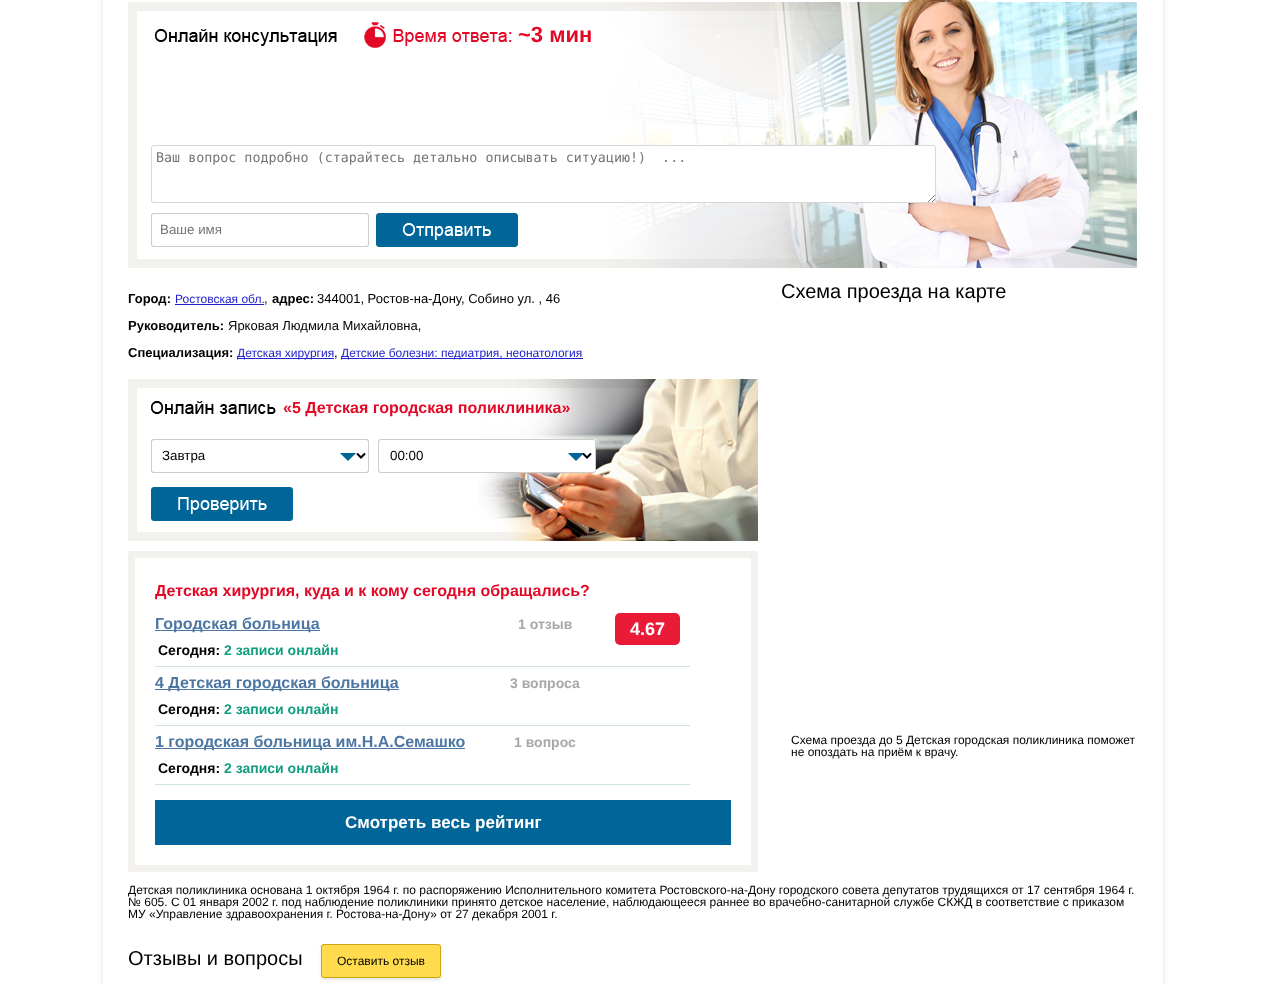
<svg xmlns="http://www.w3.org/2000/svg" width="1266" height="984">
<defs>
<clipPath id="clip1"><path d="M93 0h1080v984h-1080zm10-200h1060v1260h-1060z" clip-rule="evenodd"/></clipPath>
</defs>
<rect width="100%" height="100%" fill="#fff"/>
<g clip-path="url(#clip1)">
<rect x="103" y="-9" width="1060" height="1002" fill="#0000001a" filter="blur(3px)"/>
</g>
<image x="128" y="0" width="1009" height="268" href="media/1.png"/>
<text x="518" y="42" style="font-family:Liberation Sans;font-size:22px;font-weight:bold;fill:#e30926">~3 мин</text>
<text x="156" y="162" style="font-family:DejaVu Sans Mono;font-size:13.35px;fill:#757575" xml:space="preserve">Ваш вопрос подробно (старайтесь детально описывать ситуацию!)  ...</text>
<text x="160" y="234" style="font-family:Liberation Sans;font-size:13.35px;fill:#757575">Ваше имя</text>
<image x="376" y="213" width="142" height="34" href="media/2.png"/>
<text x="128" y="303" style="font-family:Liberation Sans;font-size:13px;font-weight:bold;fill:#000">Город:</text>
<text x="175" y="303" style="font-family:Liberation Sans;font-size:12px;fill:#22c">Ростовская обл.</text>
<rect x="175" y="304" width="89" height="1" fill="#22c"/>
<text x="264" y="303" style="font-family:Liberation Sans;font-size:13px;fill:#000">,</text>
<text x="272" y="303" style="font-family:Liberation Sans;font-size:13px;font-weight:bold;fill:#000">адрес:</text>
<text x="317" y="303" style="font-family:Liberation Sans;font-size:13px;fill:#000">344001, Ростов-на-Дону, Собино ул. , 46</text>
<text x="128" y="330" style="font-family:Liberation Sans;font-size:13px;font-weight:bold;fill:#000">Руководитель:</text>
<text x="228" y="330" style="font-family:Liberation Sans;font-size:13px;fill:#000">Ярковая Людмила Михайловна,</text>
<text x="128" y="357" style="font-family:Liberation Sans;font-size:13px;font-weight:bold;fill:#000">Специализация:</text>
<rect x="237" y="358" width="97" height="1" fill="#22c"/>
<text x="237" y="357" style="font-family:Liberation Sans;font-size:12px;fill:#22c">Детская хирургия</text>
<text x="334" y="357" style="font-family:Liberation Sans;font-size:13px;fill:#000">,</text>
<rect x="341" y="358" width="242" height="1" fill="#22c"/>
<text x="341" y="357" style="font-family:Liberation Sans;font-size:12px;fill:#22c">Детские болезни: педиатрия, неонатология</text>
<image x="128" y="379" width="630" height="162" href="media/3.png"/>
<text x="283" y="413" style="font-family:Liberation Sans;font-size:16px;font-weight:bold;fill:#e30926">«5 Детская городская поликлиника»</text>
<path d="M357 453.5l4 4l4-4" fill="none" stroke="#000" stroke-width="2"/>
<text x="162" y="460" style="font-family:Liberation Sans;font-size:13.35px;fill:#000">Завтра</text>
<path d="M583 453.5l4 4l4-4" fill="none" stroke="#000" stroke-width="2"/>
<text x="390" y="460" style="font-family:Liberation Sans;font-size:13.35px;fill:#000">00:00</text>
<image x="151" y="487" width="142" height="34" href="media/4.png"/>
<rect x="131.5" y="554.5" width="623" height="314" fill="none" stroke="#f3f1ed" stroke-width="7"/>
<text x="155" y="596" style="font-family:Liberation Sans;font-size:16px;font-weight:bold;fill:#e30926">Детская хирургия, куда и к кому сегодня обращались?</text>
<rect x="155" y="666" width="535" height="1" fill="#d1e1e6"/>
<rect x="155" y="630" width="165" height="1" fill="#4d77a3"/>
<text x="155" y="629" style="font-family:Liberation Sans;font-size:16px;font-weight:bold;fill:#4d77a3">Городская больница</text>
<text x="518" y="629" style="font-family:Liberation Sans;font-size:14px;font-weight:bold;fill:#a8a8a8">1 отзыв</text>
<rect x="615" y="613" width="65" height="32" rx="5" fill="#ea1b37"/>
<text x="630" y="635" style="font-family:Liberation Sans;font-size:18px;font-weight:bold;fill:#fff">4.67</text>
<text x="158" y="655" style="font-family:Liberation Sans;font-size:14px;font-weight:bold;fill:#000">Сегодня:</text>
<text x="224" y="655" style="font-family:Liberation Sans;font-size:14px;font-weight:bold;fill:#109d80">2 записи онлайн</text>
<rect x="155" y="725" width="535" height="1" fill="#d1e1e6"/>
<rect x="155" y="689" width="244" height="1" fill="#4d77a3"/>
<text x="155" y="688" style="font-family:Liberation Sans;font-size:16px;font-weight:bold;fill:#4d77a3">4 Детская городская больница</text>
<text x="510" y="688" style="font-family:Liberation Sans;font-size:14px;font-weight:bold;fill:#a8a8a8">3 вопроса</text>
<text x="158" y="714" style="font-family:Liberation Sans;font-size:14px;font-weight:bold;fill:#000">Сегодня:</text>
<text x="224" y="714" style="font-family:Liberation Sans;font-size:14px;font-weight:bold;fill:#109d80">2 записи онлайн</text>
<rect x="155" y="784" width="535" height="1" fill="#d1e1e6"/>
<rect x="155" y="748" width="310" height="1" fill="#4d77a3"/>
<text x="155" y="747" style="font-family:Liberation Sans;font-size:16px;font-weight:bold;fill:#4d77a3">1 городская больница им.Н.А.Семашко</text>
<text x="514" y="747" style="font-family:Liberation Sans;font-size:14px;font-weight:bold;fill:#a8a8a8">1 вопрос</text>
<text x="158" y="773" style="font-family:Liberation Sans;font-size:14px;font-weight:bold;fill:#000">Сегодня:</text>
<text x="224" y="773" style="font-family:Liberation Sans;font-size:14px;font-weight:bold;fill:#109d80">2 записи онлайн</text>
<rect x="155" y="800" width="576" height="45" fill="#069"/>
<text x="345" y="828" style="font-family:Liberation Sans;font-size:17px;font-weight:bold;fill:#fff">Смотреть весь рейтинг</text>
<text x="781" y="298" style="font-family:Liberation Sans;font-size:20px;fill:#000">Схема проезда на карте</text>
<text x="791" y="744" style="font-family:Liberation Sans;font-size:12px;fill:#000">Схема проезда до 5 Детская городская поликлиника поможет</text>
<text x="791" y="756" style="font-family:Liberation Sans;font-size:12px;fill:#000">не опоздать на приём к врачу.</text>
<text x="128" y="894" style="font-family:Liberation Sans;font-size:12px;fill:#000">Детская поликлиника основана 1 октября 1964 г. по распоряжению Исполнительного комитета Ростовского-на-Дону городского совета депутатов трудящихся от 17 сентября 1964 г.</text>
<text x="128" y="906" style="font-family:Liberation Sans;font-size:12px;fill:#000">№ 605. С 01 января 2002 г. под наблюдение поликлиники принято детское население, наблюдающееся раннее во врачебно-санитарной службе СКЖД в соответствие с приказом</text>
<text x="128" y="918" style="font-family:Liberation Sans;font-size:12px;fill:#000">МУ «Управление здравоохранения г. Ростова-на-Дону» от 27 декабря 2001 г.</text>
<text x="128" y="965" style="font-family:Liberation Sans;font-size:20px;fill:#000">Отзывы и вопросы</text>
<rect x="321" y="946" width="120" height="34" rx="3" fill="#0000001a" filter="blur(1.5px)"/>
<rect x="321" y="944" width="120" height="34" rx="3" fill="#ffdb4d"/>
<rect x="321.5" y="944.5" width="119" height="33" rx="2.5" fill="none" stroke="#bf9900cc"/>
<text x="337" y="965" style="font-family:Liberation Sans;font-size:12px;fill:#000">Оставить отзыв</text>
</svg>
